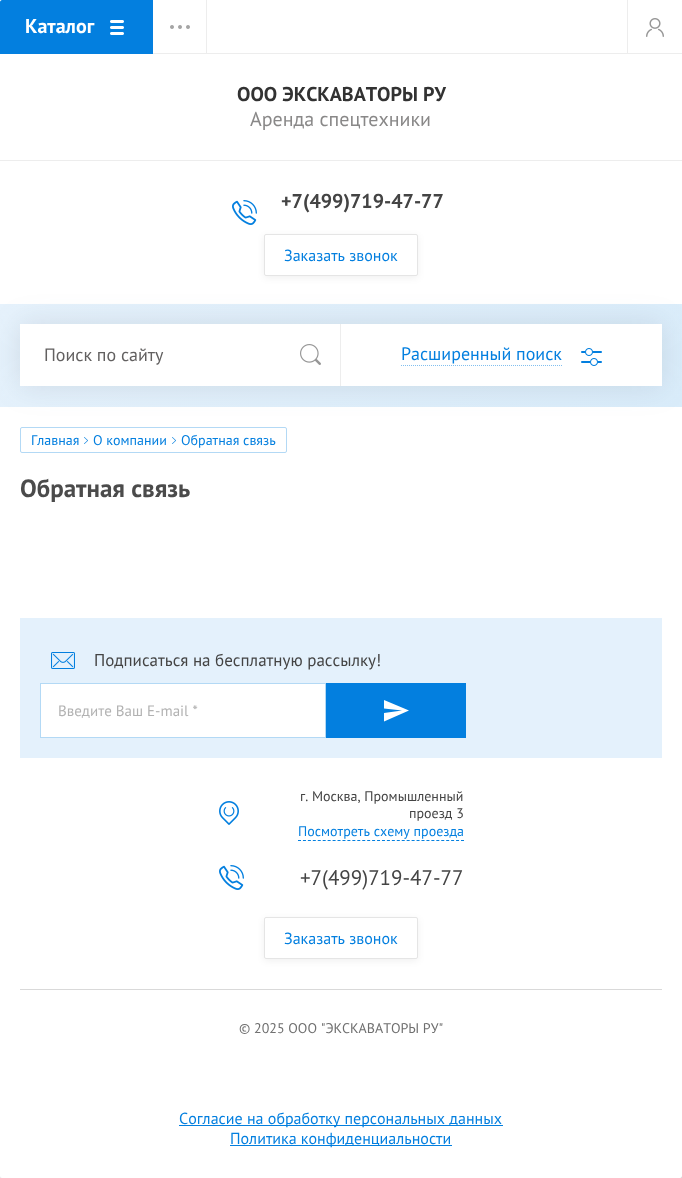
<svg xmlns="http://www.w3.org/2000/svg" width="682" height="1178">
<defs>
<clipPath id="clip1"><path d="M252 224h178v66h-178zm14 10h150c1 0 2 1 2 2v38c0 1-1 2-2 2h-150c-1 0-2-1-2-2v-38c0-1 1-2 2-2z" clip-rule="evenodd"/></clipPath>
<linearGradient id="g1" gradientUnits="userSpaceOnUse" x1="145" y1="159" x2="537" y2="552"><stop offset="0" stop-color="#e6f2fc"/><stop offset="1" stop-color="#d9ecfa"/></linearGradient>
<clipPath id="clip2"><path d="M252 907h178v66h-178zm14 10h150c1 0 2 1 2 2v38c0 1-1 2-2 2h-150c-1 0-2-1-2-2v-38c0-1 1-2 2-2z" clip-rule="evenodd"/></clipPath>
</defs>
<rect width="100%" height="100%" fill="#fff"/>
<image x="0" y="1176" width="682" height="2" href="media/1.png"/>
<rect width="682" height="1178" rx="2" fill="#4f586224" filter="blur(15px)"/>
<rect width="682" height="1178" rx="2" fill="#fff"/>
<rect width="682" height="1" fill="#fff"/>
<path d="M2 0h151v54h-153v-52c0-1 1-2 2-2z" fill="#037fdf"/>
<text x="25" y="33" style="font-family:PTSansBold;font-size:20px;font-weight:bold;fill:#fff">Каталог</text>
<image x="110" y="20" width="14" height="15" href="media/2.png"/>
<image x="170" y="25" width="20" height="4" href="media/3.png"/>
<rect x="153" y="53" width="529" height="1" fill="#ededed"/>
<rect x="206" width="1" height="54" fill="#ededed"/>
<rect x="627" width="1" height="54" fill="#ededed"/>
<image x="646" y="18" width="18" height="19" href="media/4.png"/>
<rect y="160" width="682" height="1" fill="#ededed"/>
<text x="237" y="101" style="font-family:PTSansBold;font-size:20px;font-weight:bold;fill:#323232">ООО ЭКСКАВАТОРЫ РУ</text>
<text x="250" y="126" style="font-family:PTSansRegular;font-size:20px;fill:#898888">Аренда спецтехники</text>
<g clip-path="url(#clip1)">
<rect x="264" y="236" width="154" height="42" rx="2" fill="#0000000f" filter="blur(3.5px)"/>
</g>
<image x="232" y="200" width="25" height="25" href="media/5.png"/>
<text x="281" y="208" style="font-family:PTSansBold;font-size:20px;font-weight:bold;fill:#444">+7(499)719-47-77</text>
<rect x="264.5" y="234.5" width="153" height="41" rx="1.5" fill="none" stroke="#e5e5e5"/>
<text x="284" y="261" style="font-family:PTSansRegular;font-size:16px;fill:#037fdf">Заказать звонок</text>
<rect y="304" width="682" height="103" fill="url(#g1)"/>
<rect x="20.5" y="427.5" width="266" height="25" rx="1.5" fill="none" stroke="#b3d9f5"/>
<rect x="20" y="324" width="642" height="62" fill="#4f586224" filter="blur(15px)"/>
<rect x="20" y="324" width="642" height="62" fill="#fff"/>
<rect x="340" y="324" width="1" height="62" fill="#ededed"/>
<text x="44" y="361" style="font-family:PTSansRegular;font-size:18px;fill:#626060">Поиск по сайту</text>
<image x="300" y="344" width="21" height="21" href="media/6.png"/>
<text x="401" y="360" style="font-family:PTSansRegular;font-size:18px;fill:#037fdf">Расширенный поиск</text>
<path d="M401 365.5h161" fill="none" stroke="#81bfef" stroke-dasharray="1 1"/>
<image x="581" y="348" width="21" height="18" href="media/7.png"/>
<text x="31" y="445" style="font-family:PTSansRegular;font-size:14px;fill:#037fdf">Главная</text>
<image x="84" y="437" width="4" height="7" href="media/8.png"/>
<text x="93" y="445" style="font-family:PTSansRegular;font-size:14px;fill:#037fdf">О компании</text>
<image x="172" y="437" width="4" height="7" href="media/8.png"/>
<text x="181" y="445" style="font-family:PTSansRegular;font-size:14px;fill:#037fdf">Обратная связь</text>
<text x="20" y="497" style="font-family:PTSansBold;font-size:25px;font-weight:bold;fill:#4b4b4b">Обратная связь</text>
<rect x="20" y="618" width="642" height="140" fill="#e4f1fc"/>
<image x="51" y="652" width="24" height="17" href="media/9.png"/>
<text x="94" y="666" style="font-family:PTSansRegular;font-size:17px;fill:#444">Подписаться на бесплатную рассылку!</text>
<rect x="40.5" y="683.5" width="285" height="54" fill="#fff" stroke="#b3d9f5"/>
<text x="58" y="716" style="font-family:PTSansRegular;font-size:15px;fill:#b2b2b2">Введите Ваш E-mail *</text>
<rect x="326" y="683" width="140" height="55" fill="#037fdf"/>
<path d="M384 721.5l25-11l-25-10.5v8.5l18 2l-18 2.5z" fill="#fff" fill-rule="evenodd"/>
<image x="219" y="801" width="20" height="24" href="media/10.png"/>
<text x="300" y="801" style="font-family:PTSansRegular;font-size:14px;fill:#444">г. Москва, Промышленный</text>
<text x="409" y="818" style="font-family:PTSansRegular;font-size:14px;fill:#444">проезд 3</text>
<text x="298" y="836" style="font-family:PTSansRegular;font-size:14px;fill:#037fdf">Посмотреть схему проезда</text>
<path d="M298 840.5h166" fill="none" stroke="#037fdf" stroke-dasharray="3 1.94"/>
<image x="219" y="865" width="25" height="25" href="media/5.png"/>
<text x="300" y="885" style="font-family:PTSansRegular;font-size:21px;fill:#444">+7(499)719-47-77</text>
<g clip-path="url(#clip2)">
<rect x="264" y="919" width="154" height="42" rx="2" fill="#0000000f" filter="blur(3.5px)"/>
</g>
<rect x="264.5" y="917.5" width="153" height="41" rx="1.5" fill="none" stroke="#e5e5e5"/>
<text x="284" y="944" style="font-family:PTSansRegular;font-size:16px;fill:#037fdf">Заказать звонок</text>
<rect x="20" y="989" width="642" height="1" fill="#d9d9d9"/>
<text x="239" y="1033" style="font-family:PTSansRegular;font-size:14px;fill:#6f6f6f">© 2025 ООО "ЭКСКАВАТОРЫ РУ"</text>
<rect x="179" y="1125" width="324" height="1" fill="#037fdf"/>
<text x="179" y="1124" style="font-family:PTSansRegular;font-size:16px;fill:#037fdf">Согласие на обработку персональных данных</text>
<rect x="230" y="1145" width="222" height="1" fill="#037fdf"/>
<text x="230" y="1144" style="font-family:PTSansRegular;font-size:16px;fill:#037fdf">Политика конфиденциальности</text>
</svg>
